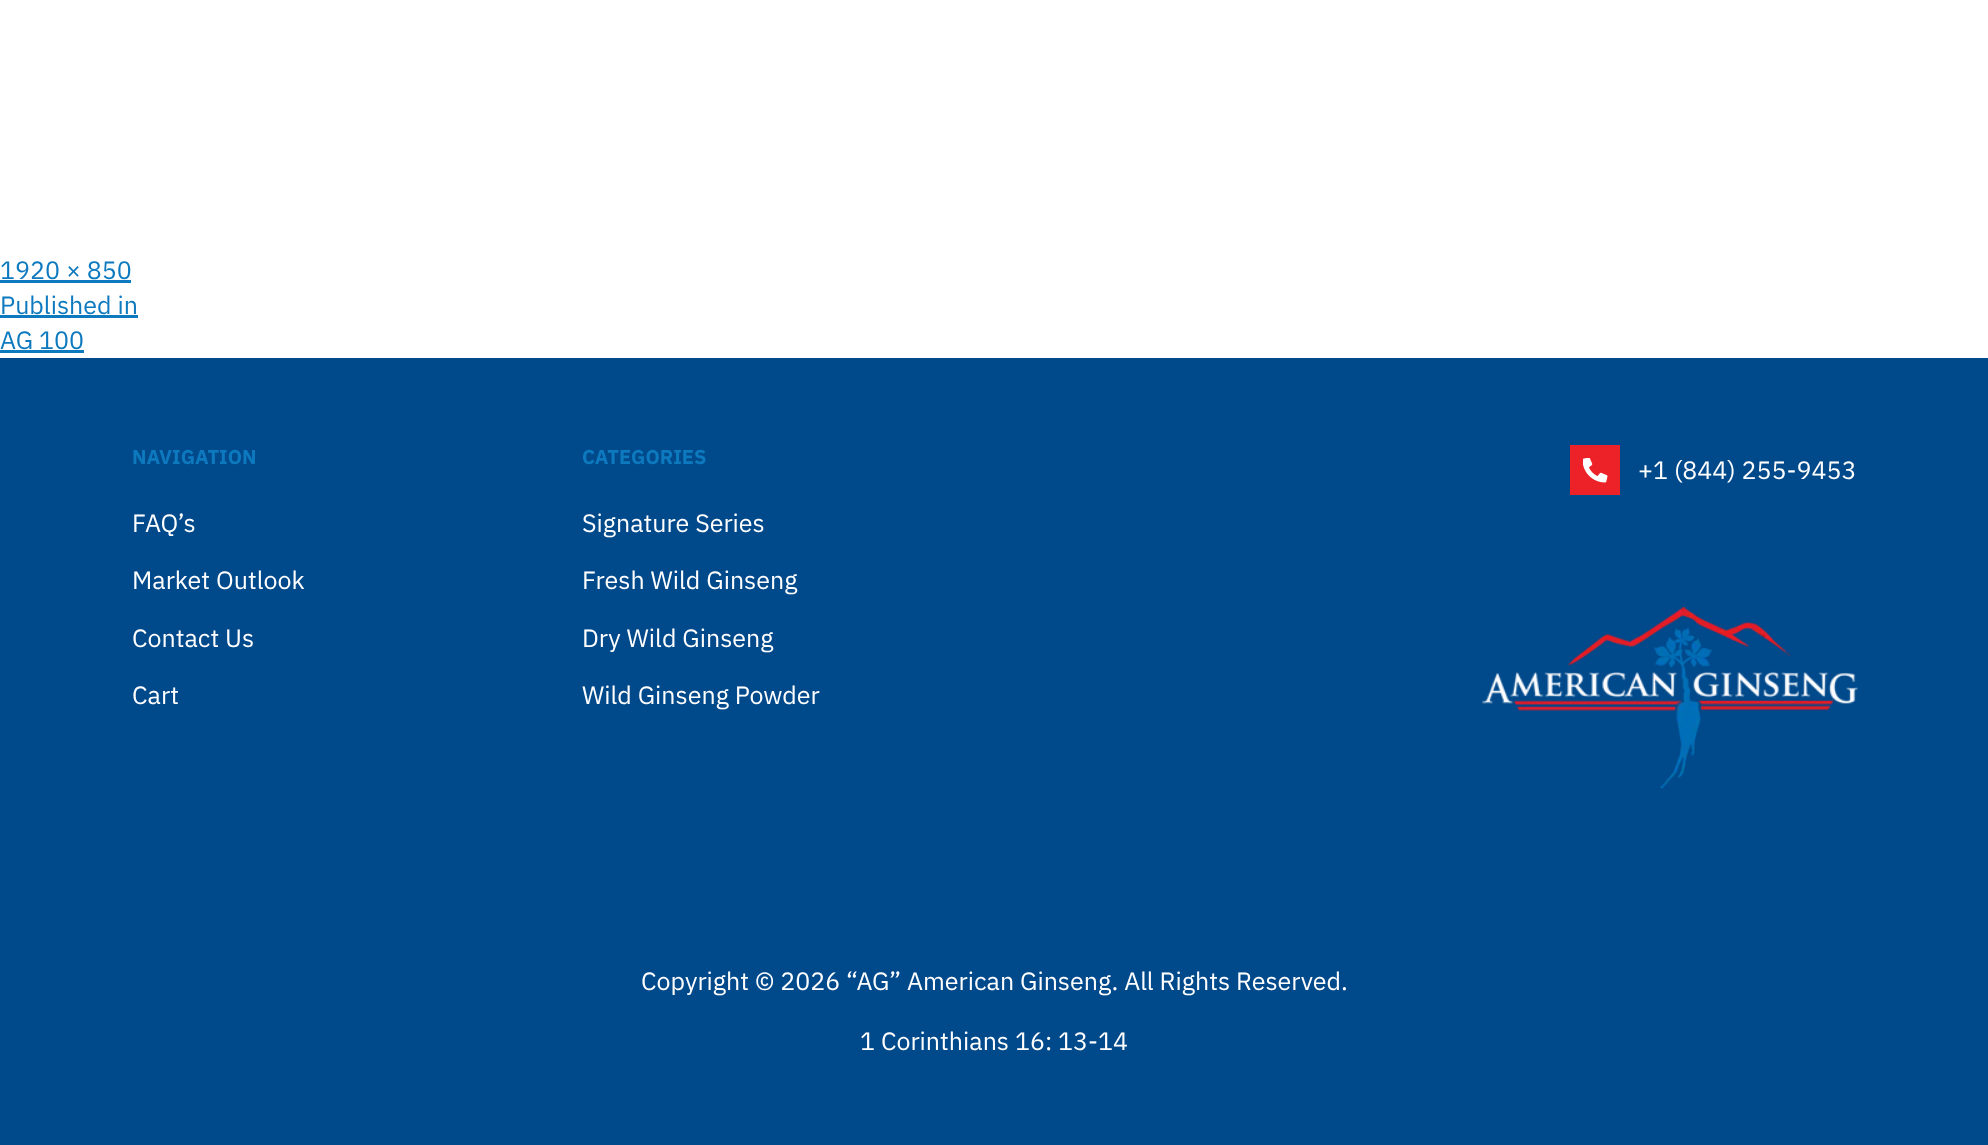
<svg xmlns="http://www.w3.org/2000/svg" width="1988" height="1145">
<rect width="100%" height="100%" fill="#fff"/>
<text x="0" y="279" style="font-family:IBM Plex Sans;font-size:25px;fill:#0d79be">1920 × 850</text>
<rect y="280" width="131" height="3" fill="#0d79be"/>
<text x="0" y="314" style="font-family:IBM Plex Sans;font-size:25px;fill:#0d79be">Published in</text>
<rect y="315" width="138" height="3" fill="#0d79be"/>
<text x="0" y="349" style="font-family:IBM Plex Sans;font-size:25px;fill:#0d79be">AG 100</text>
<rect y="350" width="84" height="3" fill="#0d79be"/>
<rect y="358" width="1988" height="787" fill="#00498b"/>
<text x="132" y="464" style="font-family:IBM Plex Sans;font-size:20px;font-weight:bold;fill:#0d79be">NAVIGATION</text>
<text x="132" y="532" style="font-family:IBM Plex Sans;font-size:25px;fill:#fff">FAQ’s</text>
<text x="132" y="589" style="font-family:IBM Plex Sans;font-size:25px;fill:#fff">Market Outlook</text>
<text x="132" y="647" style="font-family:IBM Plex Sans;font-size:25px;fill:#fff">Contact Us</text>
<text x="132" y="704" style="font-family:IBM Plex Sans;font-size:25px;fill:#fff">Cart</text>
<text x="582" y="464" style="font-family:IBM Plex Sans;font-size:20px;font-weight:bold;fill:#0d79be">CATEGORIES</text>
<text x="582" y="532" style="font-family:IBM Plex Sans;font-size:25px;fill:#fff">Signature Series</text>
<text x="582" y="589" style="font-family:IBM Plex Sans;font-size:25px;fill:#fff">Fresh Wild Ginseng</text>
<text x="582" y="647" style="font-family:IBM Plex Sans;font-size:25px;fill:#fff">Dry Wild Ginseng</text>
<text x="582" y="704" style="font-family:IBM Plex Sans;font-size:25px;fill:#fff">Wild Ginseng Powder</text>
<rect x="1570" y="445" width="50" height="50" fill="#ec2228"/>
<image x="1583" y="458" width="25" height="25" href="media/1.png"/>
<text x="1638" y="479" style="font-family:IBM Plex Sans;font-size:25px;fill:#fff">+1 (844) 255-9453</text>
<image x="1482" y="607" width="376" height="182" href="media/2.png"/>
<text x="641" y="990" style="font-family:IBM Plex Sans;font-size:25px;fill:#fff">Copyright © 2026 “AG” American Ginseng. All Rights Reserved.</text>
<text x="860" y="1050" style="font-family:IBM Plex Sans;font-size:25px;fill:#fff">1 Corinthians 16: 13-14</text>
</svg>
